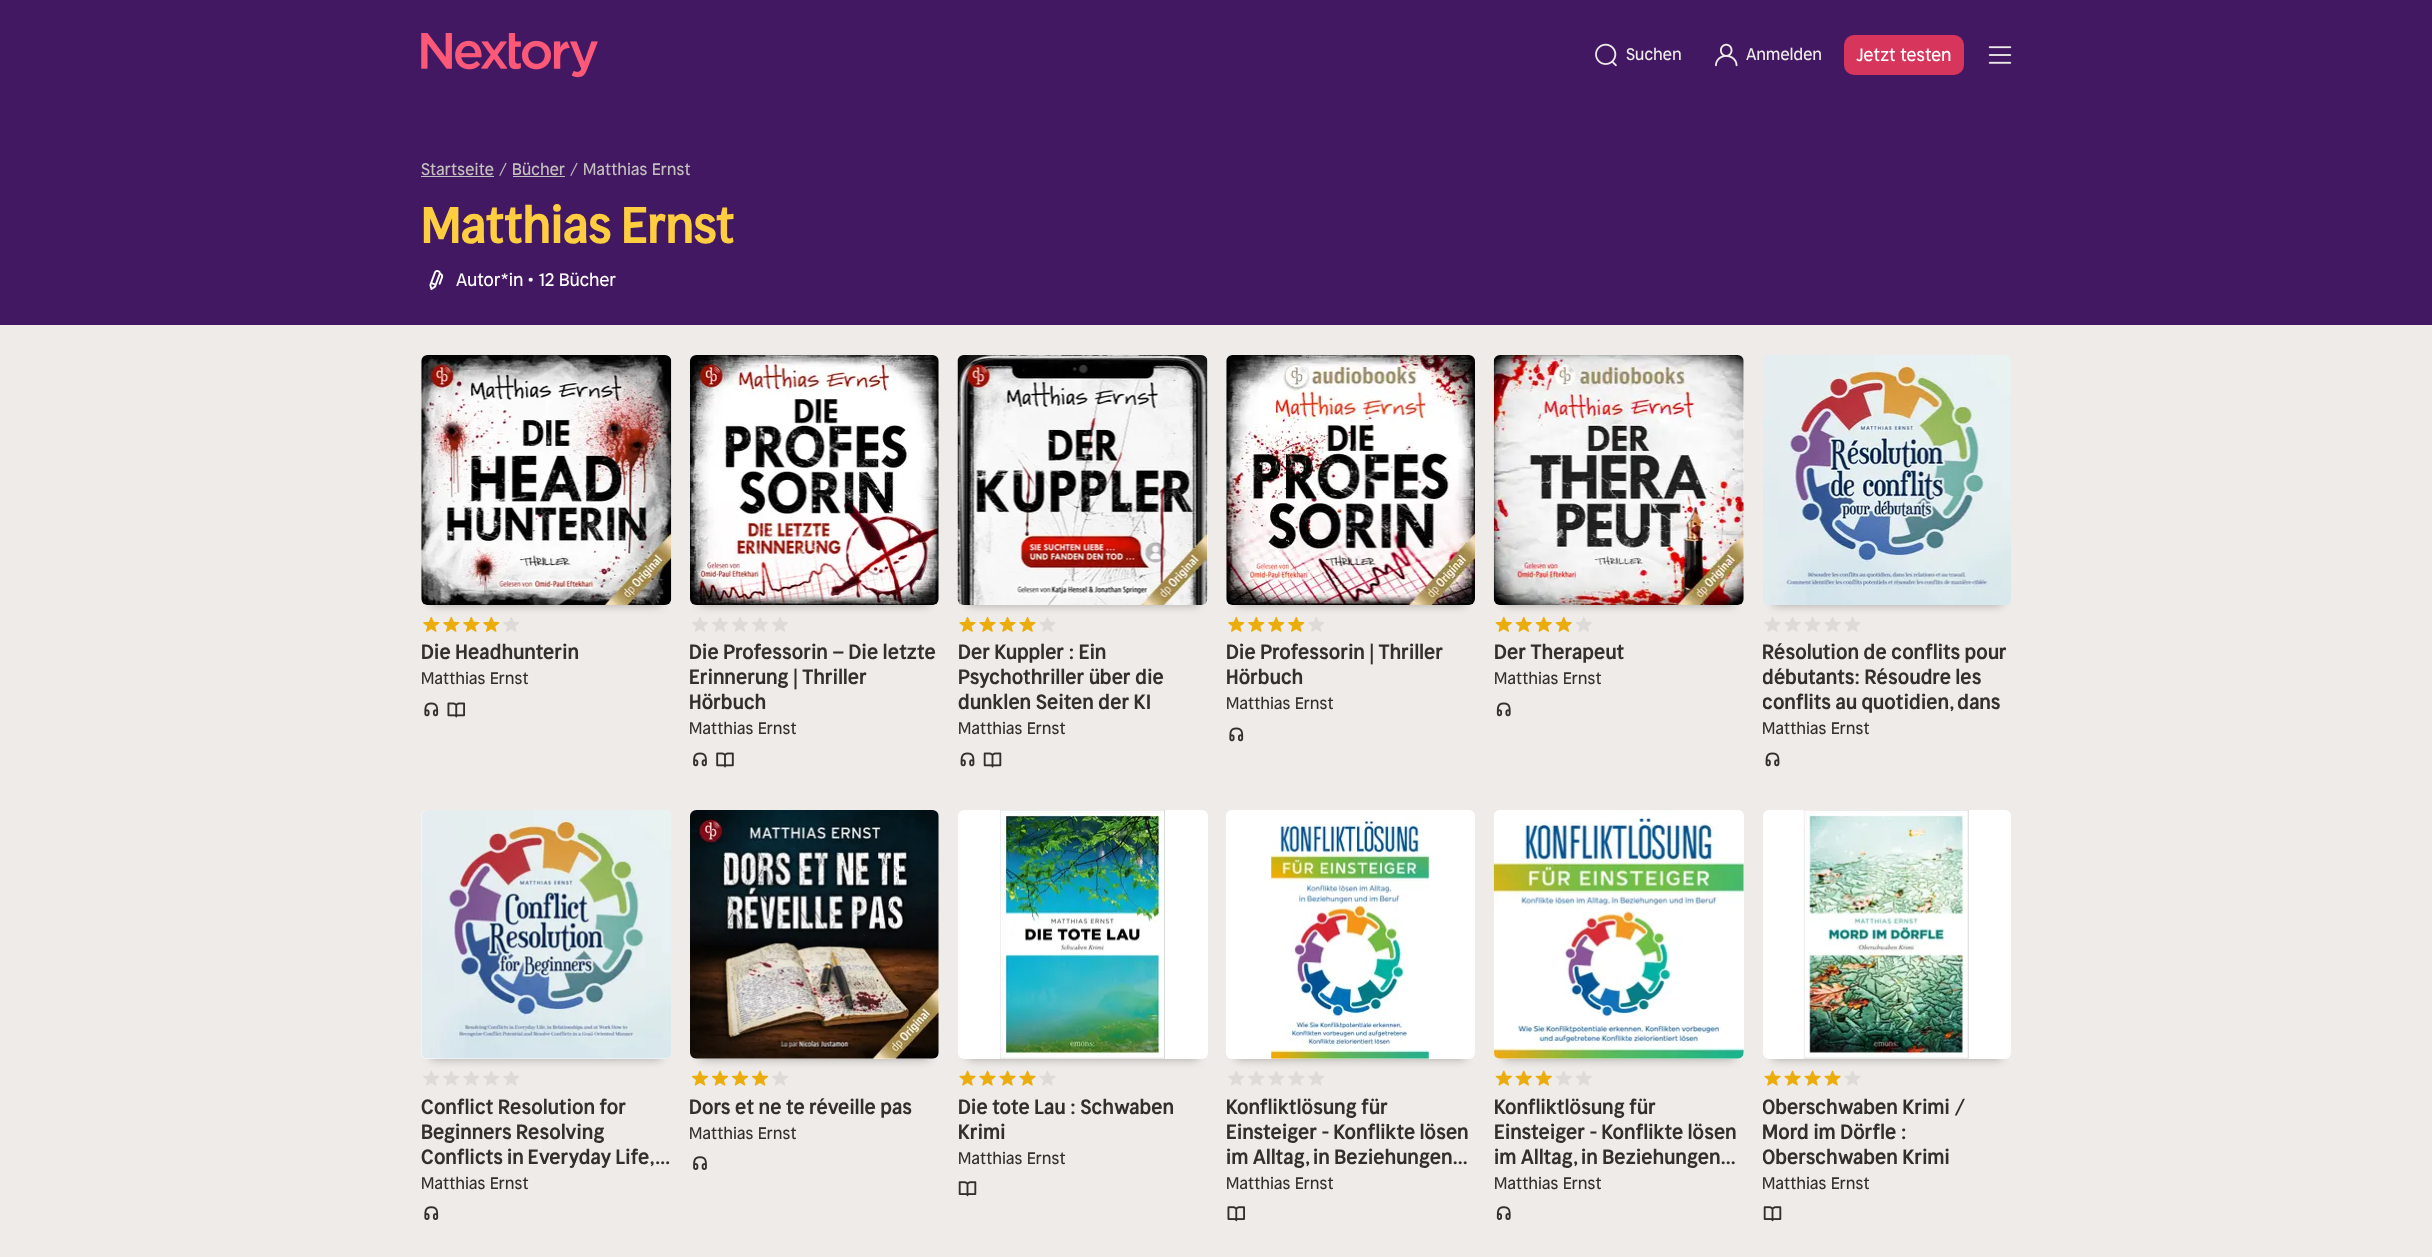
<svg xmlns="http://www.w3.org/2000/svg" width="2432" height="1257">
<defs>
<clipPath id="clip1"><rect x="1763" y="640" width="248" height="75"/></clipPath>
<clipPath id="clip2"><rect x="1763" y="720" width="248" height="20"/></clipPath>
<clipPath id="clip3"><rect x="1763" y="1094" width="248" height="75"/></clipPath>
<clipPath id="clip4"><rect x="1763" y="1174" width="248" height="20"/></clipPath>
</defs>
<rect width="100%" height="100%" fill="#421862"/>
<image x="421" y="33" width="177" height="45" href="media/1.png"/>
<image x="1595" y="43" width="22" height="24" href="media/2.png"/>
<text x="1626" y="60" style="font-family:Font;font-size:16.25px;letter-spacing:0.2px;fill:#eeebe8">Suchen</text>
<image x="1715" y="43" width="23" height="24" href="media/3.png"/>
<text x="1746" y="60" style="font-family:Font;font-size:16.25px;letter-spacing:0.2px;fill:#eeebe8">Anmelden</text>
<rect x="1844" y="35" width="120" height="40" rx="10" fill="#d7355b"/>
<text x="1856" y="61" style="font-family:Font;font-size:17.5px;letter-spacing:0.1px;fill:#fff">Jetzt testen</text>
<image x="1988" y="46" width="24" height="18" href="media/4.png"/>
<text x="421" y="175" style="font-family:Font;font-size:16.25px;letter-spacing:0.2px;fill:#c4c0bd">Startseite</text>
<rect x="421" y="176" width="73" height="1" fill="#c4c0bd"/>
<text x="499" y="175" style="font-family:Font;font-size:16.25px;letter-spacing:0.2px;fill:#c4c0bd">/</text>
<text x="512" y="175" style="font-family:Font;font-size:16.25px;letter-spacing:0.2px;fill:#c4c0bd">Bücher</text>
<rect x="513" y="176" width="52" height="1" fill="#c4c0bd"/>
<text x="570" y="175" style="font-family:Font;font-size:16.25px;letter-spacing:0.2px;fill:#c4c0bd">/</text>
<text x="583" y="175" style="font-family:Font;font-size:16.25px;letter-spacing:0.2px;fill:#c4c0bd">Matthias Ernst</text>
<text x="421" y="243" style="font-family:Font;font-size:50px;font-weight:600;letter-spacing:-0.5px;fill:#fecd40">Matthias Ernst</text>
<image x="429" y="270" width="15" height="20" href="media/5.png"/>
<text x="456" y="286" style="font-family:Font;font-size:17.5px;letter-spacing:0.2px;fill:#fff">Autor*in • 12 Bücher</text>
<rect y="325" width="2432" height="932" fill="#eeebe8"/>
<rect x="431" y="375" width="230" height="230" fill="#0000004d" filter="blur(5px)"/>
<rect x="421" y="355" width="250" height="250" rx="6" fill="#fff"/>
<image x="421" y="355" width="251" height="250" href="media/6.png"/>
<image x="423" y="616" width="17" height="16" href="media/7.png"/>
<image x="443" y="616" width="17" height="16" href="media/8.png"/>
<image x="463" y="616" width="17" height="16" href="media/8.png"/>
<image x="483" y="616" width="17" height="16" href="media/8.png"/>
<image x="503" y="617" width="16" height="15" href="media/9.png"/>
<text x="421" y="659" style="font-family:Font;font-size:20px;font-weight:600;letter-spacing:0.2px;fill:#32302d">Die Headhunterin</text>
<text x="421" y="684" style="font-family:Font;font-size:16.25px;letter-spacing:0.2px;fill:#32302d">Matthias Ernst</text>
<image x="424" y="702" width="15" height="15" href="media/10.png"/>
<image x="447" y="702" width="18" height="16" href="media/11.png"/>
<rect x="700" y="375" width="229" height="230" fill="#0000004d" filter="blur(5px)"/>
<rect x="690" y="355" width="249" height="250" rx="6" fill="#fff"/>
<image x="690" y="355" width="249" height="250" href="media/12.png"/>
<image x="692" y="617" width="16" height="15" href="media/13.png"/>
<image x="712" y="617" width="16" height="15" href="media/14.png"/>
<image x="732" y="617" width="16" height="15" href="media/14.png"/>
<image x="752" y="617" width="16" height="15" href="media/14.png"/>
<image x="772" y="617" width="16" height="15" href="media/14.png"/>
<text x="689" y="659" style="font-family:Font;font-size:20px;font-weight:600;letter-spacing:0.2px;fill:#32302d">Die Professorin – Die letzte</text>
<text x="689" y="684" style="font-family:Font;font-size:20px;font-weight:600;letter-spacing:0.2px;fill:#32302d">Erinnerung | Thriller</text>
<text x="689" y="709" style="font-family:Font;font-size:20px;font-weight:600;letter-spacing:0.2px;fill:#32302d">Hörbuch</text>
<text x="689" y="734" style="font-family:Font;font-size:16.25px;letter-spacing:0.2px;fill:#32302d">Matthias Ernst</text>
<image x="693" y="752" width="14" height="15" href="media/15.png"/>
<image x="716" y="752" width="18" height="16" href="media/16.png"/>
<rect x="968" y="375" width="230" height="230" fill="#0000004d" filter="blur(5px)"/>
<rect x="958" y="355" width="250" height="250" rx="6" fill="#fff"/>
<image x="957" y="355" width="251" height="250" href="media/17.png"/>
<image x="959" y="616" width="17" height="16" href="media/18.png"/>
<image x="979" y="616" width="17" height="16" href="media/19.png"/>
<image x="999" y="616" width="17" height="16" href="media/19.png"/>
<image x="1019" y="616" width="17" height="16" href="media/19.png"/>
<image x="1039" y="617" width="17" height="15" href="media/20.png"/>
<text x="958" y="659" style="font-family:Font;font-size:20px;font-weight:600;letter-spacing:0.2px;fill:#32302d">Der Kuppler : Ein</text>
<text x="958" y="684" style="font-family:Font;font-size:20px;font-weight:600;letter-spacing:0.2px;fill:#32302d">Psychothriller über die</text>
<text x="958" y="709" style="font-family:Font;font-size:20px;font-weight:600;letter-spacing:0.2px;fill:#32302d">dunklen Seiten der KI</text>
<text x="958" y="734" style="font-family:Font;font-size:16.25px;letter-spacing:0.2px;fill:#32302d">Matthias Ernst</text>
<image x="960" y="752" width="15" height="15" href="media/21.png"/>
<image x="983" y="752" width="19" height="16" href="media/22.png"/>
<rect x="1236" y="375" width="229" height="230" fill="#0000004d" filter="blur(5px)"/>
<rect x="1226" y="355" width="249" height="250" rx="6" fill="#fff"/>
<image x="1226" y="355" width="249" height="250" href="media/23.png"/>
<image x="1228" y="616" width="17" height="16" href="media/7.png"/>
<image x="1248" y="616" width="17" height="16" href="media/8.png"/>
<image x="1268" y="616" width="17" height="16" href="media/8.png"/>
<image x="1288" y="616" width="17" height="16" href="media/8.png"/>
<image x="1308" y="617" width="16" height="15" href="media/9.png"/>
<text x="1226" y="659" style="font-family:Font;font-size:20px;font-weight:600;letter-spacing:0.2px;fill:#32302d">Die Professorin | Thriller</text>
<text x="1226" y="684" style="font-family:Font;font-size:20px;font-weight:600;letter-spacing:0.2px;fill:#32302d">Hörbuch</text>
<text x="1226" y="709" style="font-family:Font;font-size:16.25px;letter-spacing:0.2px;fill:#32302d">Matthias Ernst</text>
<image x="1229" y="727" width="15" height="15" href="media/10.png"/>
<rect x="1504" y="375" width="230" height="230" fill="#0000004d" filter="blur(5px)"/>
<rect x="1494" y="355" width="250" height="250" rx="6" fill="#fff"/>
<image x="1493" y="355" width="251" height="250" href="media/24.png"/>
<image x="1495" y="616" width="17" height="16" href="media/25.png"/>
<image x="1515" y="616" width="17" height="16" href="media/26.png"/>
<image x="1535" y="616" width="17" height="16" href="media/26.png"/>
<image x="1555" y="616" width="17" height="16" href="media/26.png"/>
<image x="1576" y="617" width="16" height="15" href="media/27.png"/>
<text x="1494" y="659" style="font-family:Font;font-size:20px;font-weight:600;letter-spacing:0.2px;fill:#32302d">Der Therapeut</text>
<text x="1494" y="684" style="font-family:Font;font-size:16.25px;letter-spacing:0.2px;fill:#32302d">Matthias Ernst</text>
<image x="1496" y="702" width="15" height="15" href="media/28.png"/>
<rect x="1773" y="375" width="228" height="230" fill="#0000004d" filter="blur(5px)"/>
<image x="1763" y="355" width="248" height="250" href="media/29.png"/>
<image x="1764" y="617" width="17" height="15" href="media/30.png"/>
<image x="1784" y="617" width="17" height="15" href="media/20.png"/>
<image x="1804" y="617" width="17" height="15" href="media/20.png"/>
<image x="1824" y="617" width="17" height="15" href="media/20.png"/>
<image x="1844" y="617" width="17" height="15" href="media/20.png"/>
<text x="1762" y="659" style="font-family:Font;font-size:20px;font-weight:600;letter-spacing:0.2px;fill:#32302d">Résolution de conflits pour</text>
<g clip-path="url(#clip1)">
<text x="1762" y="684" style="font-family:Font;font-size:20px;font-weight:600;letter-spacing:0.2px;fill:#32302d">débutants: Résoudre les</text>
<text x="1762" y="709" style="font-family:Font;font-size:20px;font-weight:600;letter-spacing:0.2px;fill:#32302d">conflits au quotidien, dans</text>
</g>
<g clip-path="url(#clip2)">
<text x="1762" y="734" style="font-family:Font;font-size:16.25px;letter-spacing:0.2px;fill:#32302d">Matthias Ernst</text>
</g>
<image x="1765" y="752" width="15" height="15" href="media/21.png"/>
<rect x="431" y="830" width="230" height="229" fill="#0000004d" filter="blur(5px)"/>
<rect x="421" y="810" width="250" height="249" rx="6" fill="#fff"/>
<image x="421" y="810" width="250" height="249" href="media/31.png"/>
<image x="423" y="1070" width="17" height="16" href="media/32.png"/>
<image x="443" y="1071" width="17" height="15" href="media/33.png"/>
<image x="463" y="1071" width="17" height="15" href="media/33.png"/>
<image x="483" y="1071" width="17" height="15" href="media/33.png"/>
<image x="503" y="1071" width="17" height="15" href="media/33.png"/>
<text x="421" y="1114" style="font-family:Font;font-size:20px;font-weight:600;letter-spacing:0.2px;fill:#32302d">Conflict Resolution for</text>
<text x="421" y="1139" style="font-family:Font;font-size:20px;font-weight:600;letter-spacing:0.2px;fill:#32302d">Beginners Resolving</text>
<text x="421" y="1164" word-spacing="-0.5" style="font-family:Font;font-size:20px;font-weight:600;letter-spacing:0.2px;fill:#32302d">Conflicts in Everyday Life,…</text>
<text x="421" y="1189" style="font-family:Font;font-size:16.25px;letter-spacing:0.2px;fill:#32302d">Matthias Ernst</text>
<image x="424" y="1206" width="15" height="14" href="media/34.png"/>
<rect x="700" y="830" width="229" height="229" fill="#0000004d" filter="blur(5px)"/>
<rect x="690" y="810" width="249" height="249" rx="6" fill="#fff"/>
<image x="690" y="810" width="249" height="249" href="media/35.png"/>
<image x="691" y="1070" width="18" height="16" href="media/36.png"/>
<image x="711" y="1070" width="18" height="16" href="media/37.png"/>
<image x="731" y="1070" width="18" height="16" href="media/37.png"/>
<image x="751" y="1070" width="18" height="16" href="media/37.png"/>
<image x="772" y="1071" width="16" height="15" href="media/38.png"/>
<text x="689" y="1114" style="font-family:Font;font-size:20px;font-weight:600;letter-spacing:0.2px;fill:#32302d">Dors et ne te réveille pas</text>
<text x="689" y="1139" style="font-family:Font;font-size:16.25px;letter-spacing:0.2px;fill:#32302d">Matthias Ernst</text>
<image x="693" y="1156" width="14" height="14" href="media/39.png"/>
<rect x="968" y="830" width="230" height="229" fill="#0000004d" filter="blur(5px)"/>
<rect x="958" y="810" width="250" height="249" rx="6" fill="#fff"/>
<image x="1000" y="810" width="165" height="249" href="media/40.png"/>
<image x="959" y="1070" width="17" height="16" href="media/41.png"/>
<image x="979" y="1070" width="17" height="16" href="media/42.png"/>
<image x="999" y="1070" width="17" height="16" href="media/42.png"/>
<image x="1019" y="1070" width="17" height="16" href="media/42.png"/>
<image x="1039" y="1070" width="17" height="16" href="media/43.png"/>
<text x="958" y="1114" style="font-family:Font;font-size:20px;font-weight:600;letter-spacing:0.2px;fill:#32302d">Die tote Lau : Schwaben</text>
<text x="958" y="1139" style="font-family:Font;font-size:20px;font-weight:600;letter-spacing:0.2px;fill:#32302d">Krimi</text>
<text x="958" y="1164" style="font-family:Font;font-size:16.25px;letter-spacing:0.2px;fill:#32302d">Matthias Ernst</text>
<image x="958" y="1181" width="19" height="16" href="media/44.png"/>
<rect x="1236" y="830" width="229" height="229" fill="#0000004d" filter="blur(5px)"/>
<rect x="1226" y="810" width="249" height="249" rx="6" fill="#fff"/>
<image x="1271" y="818" width="158" height="241" href="media/45.png"/>
<image x="1228" y="1070" width="17" height="16" href="media/32.png"/>
<image x="1248" y="1071" width="17" height="15" href="media/33.png"/>
<image x="1268" y="1071" width="17" height="15" href="media/33.png"/>
<image x="1288" y="1071" width="17" height="15" href="media/33.png"/>
<image x="1308" y="1071" width="17" height="15" href="media/33.png"/>
<text x="1226" y="1114" style="font-family:Font;font-size:20px;font-weight:600;letter-spacing:0.2px;fill:#32302d">Konfliktlösung für</text>
<text x="1226" y="1139" style="font-family:Font;font-size:20px;font-weight:600;letter-spacing:0.2px;fill:#32302d">Einsteiger - Konflikte lösen</text>
<text x="1226" y="1164" style="font-family:Font;font-size:20px;font-weight:600;letter-spacing:0.2px;fill:#32302d">im Alltag, in Beziehungen…</text>
<text x="1226" y="1189" style="font-family:Font;font-size:16.25px;letter-spacing:0.2px;fill:#32302d">Matthias Ernst</text>
<image x="1227" y="1206" width="18" height="16" href="media/46.png"/>
<rect x="1504" y="830" width="230" height="229" fill="#0000004d" filter="blur(5px)"/>
<rect x="1494" y="810" width="250" height="249" rx="6" fill="#fff"/>
<image x="1493" y="810" width="251" height="249" href="media/47.png"/>
<image x="1495" y="1070" width="17" height="16" href="media/48.png"/>
<image x="1515" y="1070" width="17" height="16" href="media/49.png"/>
<image x="1535" y="1070" width="17" height="16" href="media/49.png"/>
<image x="1555" y="1071" width="17" height="15" href="media/50.png"/>
<image x="1575" y="1071" width="17" height="15" href="media/50.png"/>
<text x="1494" y="1114" style="font-family:Font;font-size:20px;font-weight:600;letter-spacing:0.2px;fill:#32302d">Konfliktlösung für</text>
<text x="1494" y="1139" style="font-family:Font;font-size:20px;font-weight:600;letter-spacing:0.2px;fill:#32302d">Einsteiger - Konflikte lösen</text>
<text x="1494" y="1164" style="font-family:Font;font-size:20px;font-weight:600;letter-spacing:0.2px;fill:#32302d">im Alltag, in Beziehungen…</text>
<text x="1494" y="1189" style="font-family:Font;font-size:16.25px;letter-spacing:0.2px;fill:#32302d">Matthias Ernst</text>
<image x="1496" y="1206" width="15" height="14" href="media/51.png"/>
<rect x="1773" y="830" width="228" height="229" fill="#0000004d" filter="blur(5px)"/>
<rect x="1763" y="810" width="248" height="249" rx="6" fill="#fff"/>
<image x="1803" y="810" width="166" height="249" href="media/52.png"/>
<image x="1764" y="1070" width="17" height="16" href="media/41.png"/>
<image x="1784" y="1070" width="17" height="16" href="media/42.png"/>
<image x="1804" y="1070" width="17" height="16" href="media/42.png"/>
<image x="1824" y="1070" width="17" height="16" href="media/42.png"/>
<image x="1844" y="1070" width="17" height="16" href="media/43.png"/>
<g clip-path="url(#clip3)">
<text x="1762" y="1114" style="font-family:Font;font-size:20px;font-weight:600;letter-spacing:0.2px;fill:#32302d">Oberschwaben Krimi /</text>
</g>
<text x="1762" y="1139" style="font-family:Font;font-size:20px;font-weight:600;letter-spacing:0.2px;fill:#32302d">Mord im Dörfle :</text>
<g clip-path="url(#clip3)">
<text x="1762" y="1164" style="font-family:Font;font-size:20px;font-weight:600;letter-spacing:0.2px;fill:#32302d">Oberschwaben Krimi</text>
</g>
<g clip-path="url(#clip4)">
<text x="1762" y="1189" style="font-family:Font;font-size:16.25px;letter-spacing:0.2px;fill:#32302d">Matthias Ernst</text>
</g>
<image x="1763" y="1206" width="19" height="16" href="media/44.png"/>
</svg>
